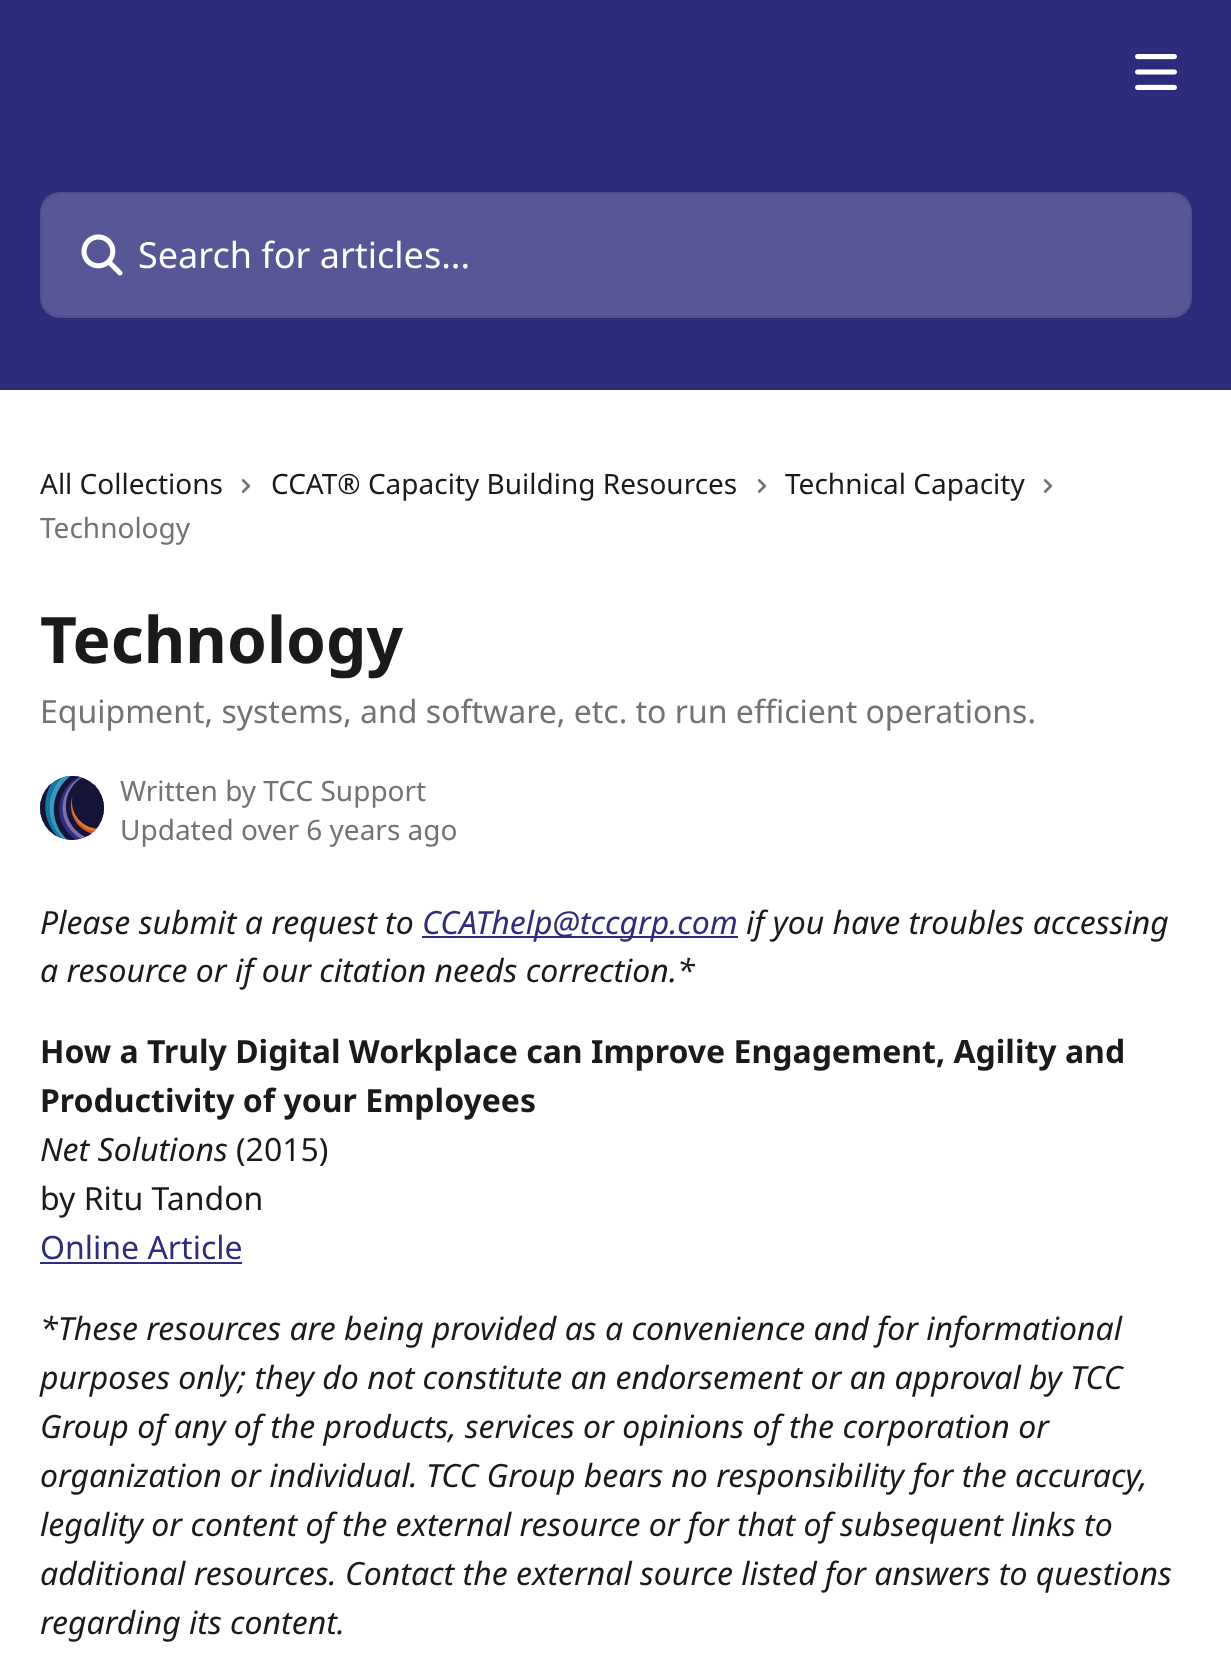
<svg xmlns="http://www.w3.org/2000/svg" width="1231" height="1655">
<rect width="100%" height="100%" fill="#fff"/>
<rect width="1231" height="390" fill="#2d2c7c"/>
<image x="1135" y="54" width="42" height="36" href="media/1.png"/>
<rect x="40" y="192" width="1152" height="126" rx="20" fill="#575696"/>
<rect x="41" y="193" width="1150" height="124" rx="19" fill="none" stroke="#00000014" stroke-width="2"/>
<image x="81" y="234" width="42" height="42" href="media/2.png"/>
<text x="138" y="268" style="font-family:Noto Sans;font-size:36px;fill:#fff">Search for articles...</text>
<text x="40" y="494" style="font-family:Noto Sans;font-size:28px;fill:#1a1a1a">All Collections</text>
<image x="241" y="479" width="10" height="14" href="media/3.png"/>
<text x="271" y="494" style="font-family:Noto Sans;font-size:28px;fill:#1a1a1a">CCAT® Capacity Building Resources</text>
<image x="757" y="479" width="10" height="14" href="media/3.png"/>
<text x="785" y="494" style="font-family:Noto Sans;font-size:28px;fill:#1a1a1a">Technical Capacity</text>
<image x="1043" y="479" width="10" height="14" href="media/3.png"/>
<text x="40" y="538" style="font-family:Noto Sans;font-size:28px;fill:#737373">Technology</text>
<text x="40" y="663" style="font-family:Noto Sans;font-size:64px;font-weight:bold;fill:#1a1a1a">Technology</text>
<text x="40" y="723" style="font-family:Noto Sans;font-size:32px;fill:#737373">Equipment, systems, and software, etc. to run efficient operations.</text>
<circle cx="72" cy="808" r="32" fill="#2d2c7d"/>
<image x="40" y="776" width="64" height="64" href="media/4.png"/>
<text x="120" y="801" style="font-family:Noto Sans;font-size:28px;fill:#737373">Written by TCC Support</text>
<text x="120" y="840" style="font-family:Noto Sans;font-size:28px;fill:#737373">Updated over 6 years ago</text>
<text x="40" y="934" style="font-family:Noto Sans;font-size:32px;font-style:italic;fill:#1a1a1a">Please submit a request to</text>
<rect x="422" y="936" width="316" height="2" fill="#2d2c7d"/>
<text x="422" y="934" style="font-family:Noto Sans;font-size:32px;font-style:italic;fill:#2d2c7d">CCAThelp@tccgrp.com</text>
<text x="746" y="934" style="font-family:Noto Sans;font-size:32px;font-style:italic;fill:#1a1a1a">if you have troubles accessing</text>
<text x="40" y="982" style="font-family:Noto Sans;font-size:32px;font-style:italic;fill:#1a1a1a">a resource or if our citation needs correction.*</text>
<text x="40" y="1063" style="font-family:Noto Sans;font-size:32px;font-weight:bold;fill:#1a1a1a">How a Truly Digital Workplace can Improve Engagement, Agility and</text>
<text x="40" y="1112" style="font-family:Noto Sans;font-size:32px;font-weight:bold;fill:#1a1a1a">Productivity of your Employees</text>
<text x="40" y="1161" style="font-family:Noto Sans;font-size:32px;font-style:italic;fill:#1a1a1a">Net Solutions</text>
<text x="236" y="1161" style="font-family:Noto Sans;font-size:32px;fill:#1a1a1a">(2015)</text>
<text x="40" y="1210" style="font-family:Noto Sans;font-size:32px;fill:#1a1a1a">by Ritu Tandon</text>
<text x="40" y="1259" style="font-family:Noto Sans;font-size:32px;fill:#2d2c7d">Online Article</text>
<rect x="40" y="1262" width="202" height="2" fill="#2d2c7d"/>
<text x="40" y="1340" style="font-family:Noto Sans;font-size:32px;font-style:italic;fill:#1a1a1a">*These resources are being provided as a convenience and for informational</text>
<text x="40" y="1389" style="font-family:Noto Sans;font-size:32px;font-style:italic;fill:#1a1a1a">purposes only; they do not constitute an endorsement or an approval by TCC</text>
<text x="40" y="1438" style="font-family:Noto Sans;font-size:32px;font-style:italic;fill:#1a1a1a">Group of any of the products, services or opinions of the corporation or</text>
<text x="40" y="1487" style="font-family:Noto Sans;font-size:32px;font-style:italic;fill:#1a1a1a">organization or individual. TCC Group bears no responsibility for the accuracy,</text>
<text x="40" y="1536" style="font-family:Noto Sans;font-size:32px;font-style:italic;fill:#1a1a1a">legality or content of the external resource or for that of subsequent links to</text>
<text x="40" y="1585" style="font-family:Noto Sans;font-size:32px;font-style:italic;fill:#1a1a1a">additional resources. Contact the external source listed for answers to questions</text>
<text x="40" y="1634" style="font-family:Noto Sans;font-size:32px;font-style:italic;fill:#1a1a1a">regarding its content.</text>
</svg>
